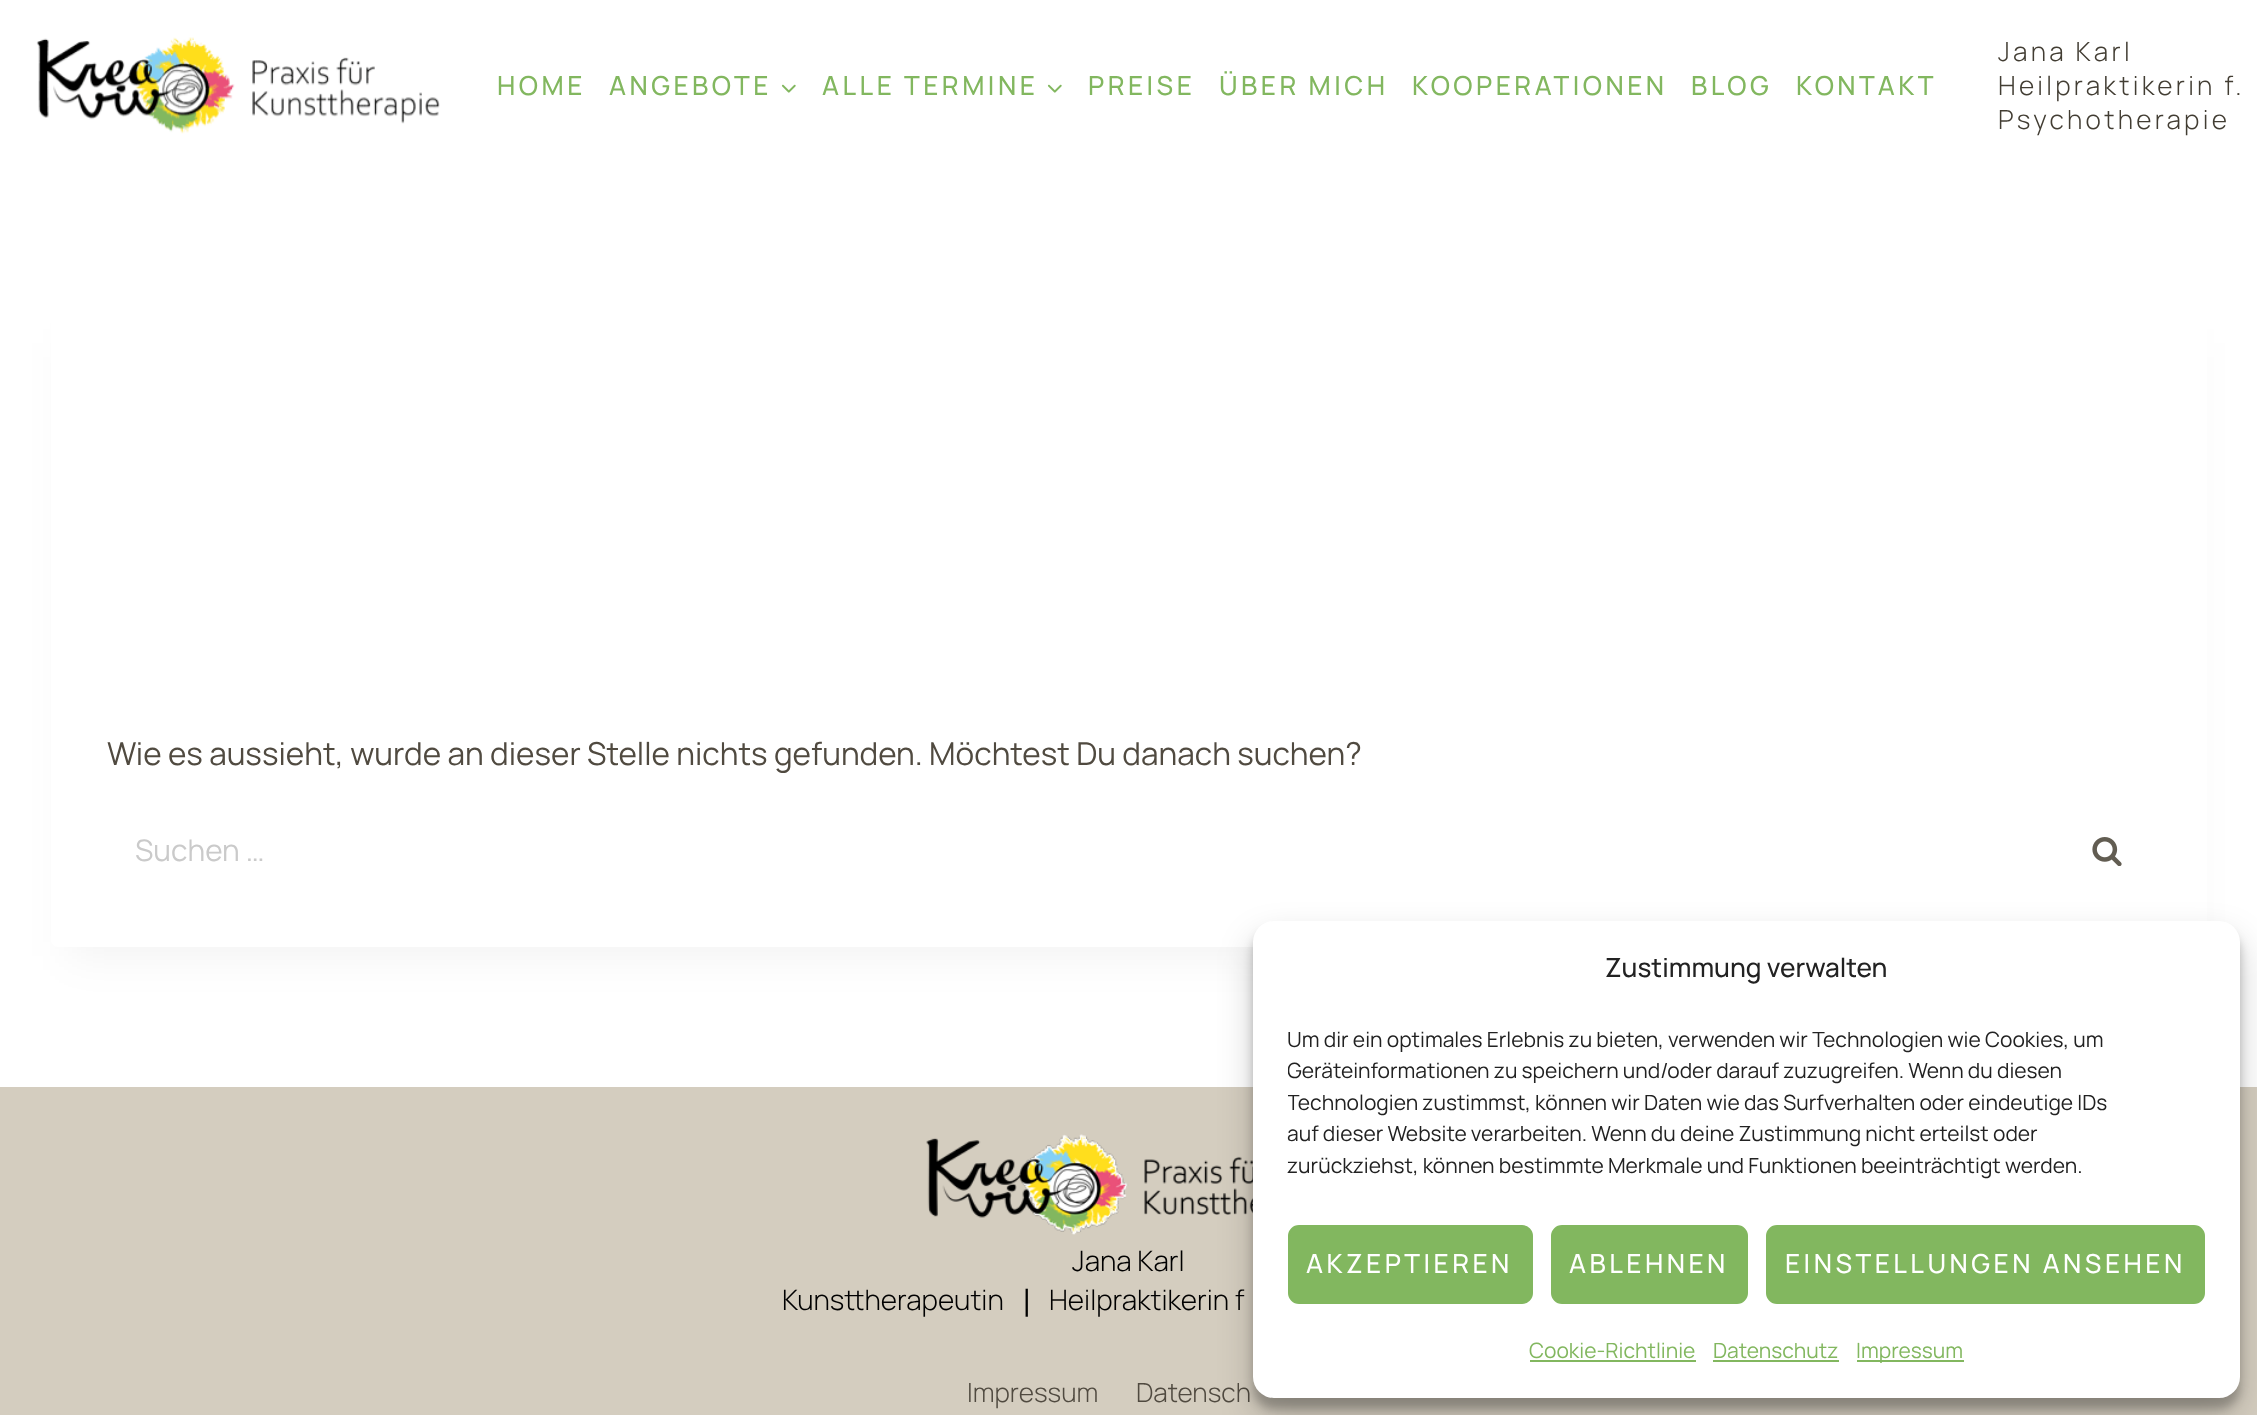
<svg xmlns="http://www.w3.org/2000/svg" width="2257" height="1415">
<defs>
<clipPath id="clip1"><rect x="1288" y="1024" width="917" height="166"/></clipPath>
</defs>
<rect width="100%" height="100%" fill="#fff"/>
<image x="36" y="37" width="404" height="97" href="media/1.png"/>
<text x="497" y="95" style="font-family:Manrope;font-size:26.25px;font-weight:500;letter-spacing:3.5px;fill:#82b75f">HOME</text>
<text x="609" y="95" style="font-family:Manrope;font-size:26.25px;font-weight:500;letter-spacing:3.5px;fill:#82b75f">ANGEBOTE</text>
<image x="781" y="84" width="15" height="9" href="media/2.png"/>
<text x="822" y="95" style="font-family:Manrope;font-size:26.25px;font-weight:500;letter-spacing:3.5px;fill:#82b75f">ALLE TERMINE</text>
<image x="1047" y="84" width="15" height="9" href="media/2.png"/>
<text x="1088" y="95" style="font-family:Manrope;font-size:26.25px;font-weight:500;letter-spacing:3.5px;fill:#82b75f">PREISE</text>
<text x="1219" y="95" style="font-family:Manrope;font-size:26.25px;font-weight:500;letter-spacing:3.5px;fill:#82b75f">ÜBER MICH</text>
<text x="1412" y="95" style="font-family:Manrope;font-size:26.25px;font-weight:500;letter-spacing:3.5px;fill:#82b75f">KOOPERATIONEN</text>
<text x="1691" y="95" style="font-family:Manrope;font-size:26.25px;font-weight:500;letter-spacing:3.5px;fill:#82b75f">BLOG</text>
<text x="1796" y="95" style="font-family:Manrope;font-size:26.25px;font-weight:500;letter-spacing:3.5px;fill:#82b75f">KONTAKT</text>
<text x="1998" y="61" style="font-family:Manrope;font-size:26.25px;font-weight:300;letter-spacing:3.25px;fill:#423d33">Jana Karl</text>
<text x="1998" y="95" style="font-family:Manrope;font-size:26.25px;font-weight:300;letter-spacing:3.25px;fill:#423d33">Heilpraktikerin f.</text>
<text x="1998" y="129" style="font-family:Manrope;font-size:26.25px;font-weight:300;letter-spacing:3.25px;fill:#423d33">Psychotherapie</text>
<rect x="68" y="343" width="2121" height="613" fill="#0000000d" filter="blur(22px)"/>
<rect x="51" y="299" width="2156" height="648" rx="7" fill="#fff"/>
<text x="107" y="765" style="font-family:Manrope;font-size:31.5px;fill:#504a40">Wie es aussieht, wurde an dieser Stelle nichts gefunden. Möchtest Du danach suchen?</text>
<text x="135" y="861" style="font-family:Manrope;font-size:29.75px;fill:#cacaca">Suchen …</text>
<image x="2092" y="837" width="30" height="29" href="media/3.png"/>
<rect y="1087" width="2257" height="328" fill="#d4cdbf"/>
<image x="926" y="1134" width="327" height="101" href="media/4.png"/>
<text x="1072" y="1271" style="font-family:Manrope;font-size:28px;font-weight:300;fill:#000">Jana Karl</text>
<text x="782" y="1310" style="font-family:Manrope;font-size:28px;font-weight:300;fill:#000">Kunsttherapeutin</text>
<text x="1015" y="1310" style="font-family:DejaVu Sans;font-size:28px;fill:#000">❘</text>
<text x="1049" y="1310" style="font-family:Manrope;font-size:28px;font-weight:300;fill:#000">Heilpraktikerin f</text>
<text x="967" y="1402" style="font-family:Manrope;font-size:26.25px;font-weight:300;fill:#504a40">Impressum</text>
<text x="1136" y="1402" style="font-family:Manrope;font-size:26.25px;font-weight:300;fill:#504a40">Datensch</text>
<rect x="1253" y="931" width="987" height="478" rx="21" fill="#0000003b" filter="blur(5px)"/>
<rect x="1253" y="938" width="987" height="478" rx="21" fill="#00000030" filter="blur(17.5px)"/>
<rect x="1253" y="921" width="987" height="477" rx="21" fill="#fff"/>
<text x="1605" y="977" style="font-family:Manrope;font-size:26.25px;font-weight:500;fill:#222">Zustimmung verwalten</text>
<text x="1287" y="1047" style="font-family:Manrope;font-size:21px;fill:#222">Um dir ein optimales Erlebnis zu bieten, verwenden wir Technologien wie Cookies, um</text>
<g clip-path="url(#clip1)">
<text x="1287" y="1078" style="font-family:Manrope;font-size:21px;fill:#222">Geräteinformationen zu speichern und/oder darauf zuzugreifen. Wenn du diesen</text>
<text x="1287" y="1110" style="font-family:Manrope;font-size:21px;fill:#222">Technologien zustimmst, können wir Daten wie das Surfverhalten oder eindeutige IDs</text>
</g>
<text x="1287" y="1141" style="font-family:Manrope;font-size:21px;fill:#222">auf dieser Website verarbeiten. Wenn du deine Zustimmung nicht erteilst oder</text>
<text x="1287" y="1173" style="font-family:Manrope;font-size:21px;fill:#222">zurückziehst, können bestimmte Merkmale und Funktionen beeinträchtigt werden.</text>
<rect x="1289" y="1226" width="243" height="77" rx="10" fill="#82b75f" stroke="#82b75f" stroke-width="2"/>
<text x="1306" y="1273" style="font-family:Manrope;font-size:26.25px;font-weight:500;letter-spacing:3.5px;fill:#fff">AKZEPTIEREN</text>
<rect x="1552" y="1226" width="195" height="77" rx="10" fill="#82b75f" stroke="#82b75f" stroke-width="2"/>
<text x="1569" y="1273" style="font-family:Manrope;font-size:26.25px;font-weight:500;letter-spacing:3.5px;fill:#fff">ABLEHNEN</text>
<rect x="1767" y="1226" width="437" height="77" rx="10" fill="#82b75f" stroke="#82b75f" stroke-width="2"/>
<text x="1785" y="1273" style="font-family:Manrope;font-size:26.25px;font-weight:500;letter-spacing:3.5px;fill:#fff">EINSTELLUNGEN ANSEHEN</text>
<text x="1529" y="1358" style="font-family:Manrope;font-size:21px;fill:#82b75f">Cookie-Richtlinie</text>
<rect x="1530" y="1360" width="166" height="2" fill="#82b75f"/>
<text x="1713" y="1358" style="font-family:Manrope;font-size:21px;fill:#82b75f">Datenschutz</text>
<rect x="1713" y="1360" width="126" height="2" fill="#82b75f"/>
<rect x="1857" y="1360" width="107" height="2" fill="#82b75f"/>
<text x="1856" y="1358" style="font-family:Manrope;font-size:21px;fill:#82b75f">Impressum</text>
</svg>
